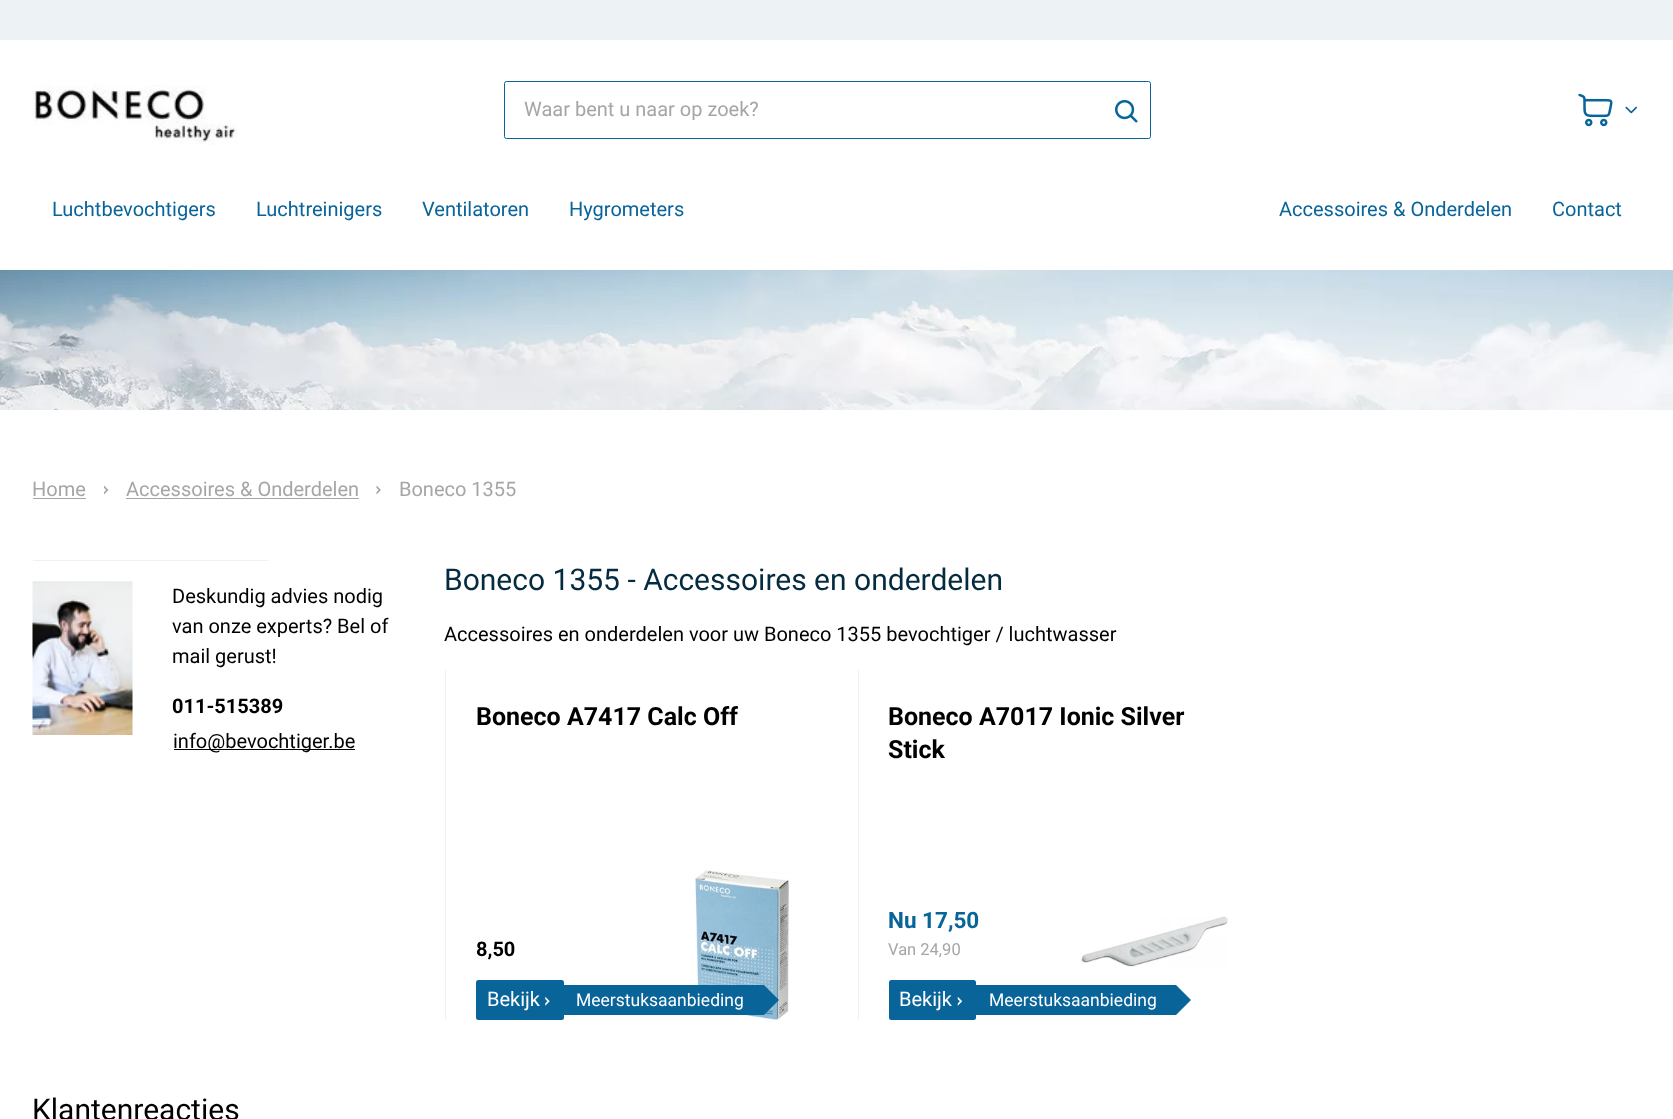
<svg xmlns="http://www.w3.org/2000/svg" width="1673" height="1119">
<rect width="100%" height="100%" fill="#fff"/>
<rect width="1673" height="40" fill="#edf2f5"/>
<image x="32" y="85" width="206" height="60" href="media/1.png"/>
<rect x="504.5" y="81.5" width="646" height="57" rx="2" fill="none" stroke="#096499"/>
<text x="524" y="116" style="font-family:Roboto;font-size:20px;fill:#a6a6a6">Waar bent u naar op zoek?</text>
<image x="1115" y="100" width="23" height="23" href="media/2.png"/>
<image x="1578" y="93" width="35" height="34" href="media/3.png"/>
<image x="1625" y="106" width="12" height="8" href="media/4.png"/>
<text x="52" y="216" style="font-family:Roboto;font-size:20px;fill:#096499">Luchtbevochtigers</text>
<text x="256" y="216" style="font-family:Roboto;font-size:20px;fill:#096499">Luchtreinigers</text>
<text x="422" y="216" style="font-family:Roboto;font-size:20px;fill:#096499">Ventilatoren</text>
<text x="569" y="216" style="font-family:Roboto;font-size:20px;fill:#096499">Hygrometers</text>
<text x="1279" y="216" style="font-family:Roboto;font-size:20px;fill:#096499">Accessoires &amp; Onderdelen</text>
<text x="1552" y="216" style="font-family:Roboto;font-size:20px;fill:#096499">Contact</text>
<image x="0" y="270" width="1673" height="140" href="media/5.png"/>
<text x="32" y="496" style="font-family:Roboto;font-size:20px;fill:#a6a6a6">Home</text>
<rect x="33" y="498" width="53" height="1" fill="#a5a5a5"/>
<image x="104" y="485" width="5" height="10" href="media/6.png"/>
<text x="126" y="496" style="font-family:Roboto;font-size:20px;fill:#a6a6a6">Accessoires &amp; Onderdelen</text>
<rect x="126" y="498" width="233" height="1" fill="#a5a5a5"/>
<image x="376" y="485" width="5" height="10" href="media/7.png"/>
<text x="399" y="496" style="font-family:Roboto;font-size:20px;fill:#a6a6a6">Boneco 1355</text>
<rect x="33" y="560" width="235" height="1" fill="#edf2f5"/>
<image x="32" y="581" width="101" height="154" href="media/8.png"/>
<text x="172" y="603" style="font-family:Roboto;font-size:20px;fill:#000">Deskundig advies nodig</text>
<text x="172" y="633" style="font-family:Roboto;font-size:20px;fill:#000">van onze experts? Bel of</text>
<text x="172" y="663" style="font-family:Roboto;font-size:20px;fill:#000">mail gerust!</text>
<text x="172" y="713" style="font-family:Roboto;font-size:20px;font-weight:bold;fill:#000">011-515389</text>
<rect x="174" y="749" width="181" height="1" fill="#000"/>
<text x="173" y="748" style="font-family:Roboto;font-size:20px;fill:#000">info@bevochtiger.be</text>
<text x="444" y="590" style="font-family:Roboto;font-size:30px;fill:#052b41">Boneco 1355 - Accessoires en onderdelen</text>
<text x="444" y="641" style="font-family:Roboto;font-size:20px;fill:#000">Accessoires en onderdelen voor uw Boneco 1355 bevochtiger / luchtwasser</text>
<rect x="445" y="670" width="1" height="350" fill="#edf2f5"/>
<text x="476" y="725" style="font-family:Roboto;font-size:25px;font-weight:bold;fill:#000">Boneco A7417 Calc Off</text>
<image x="695" y="870" width="95" height="150" href="media/9.png"/>
<text x="476" y="956" style="font-family:Roboto;font-size:20px;font-weight:bold;fill:#000">8,50</text>
<rect x="476" y="980" width="88" height="40" rx="2.5" fill="#096499"/>
<text x="487" y="1006" style="font-family:Roboto;font-size:20px;fill:#fff">Bekijk</text>
<image x="545" y="996" width="5" height="10" href="media/10.png"/>
<rect x="564" y="985" width="200" height="30" fill="#096499"/>
<text x="576" y="1006" style="font-family:Roboto;font-size:17.5px;fill:#fff">Meerstuksaanbieding</text>
<path d="M764 1015v-30l15 15z" fill="#096499"/>
<rect x="858" y="670" width="1" height="350" fill="#edf2f5"/>
<text x="888" y="725" style="font-family:Roboto;font-size:25px;font-weight:bold;fill:#000">Boneco A7017 Ionic Silver</text>
<text x="888" y="758" style="font-family:Roboto;font-size:25px;font-weight:bold;fill:#000">Stick</text>
<text x="888" y="928" style="font-family:Roboto;font-size:22.5px;font-weight:bold;fill:#096499">Nu 17,50</text>
<text x="888" y="955" style="font-family:Roboto;font-size:16.5px;fill:#a6a6a6">Van 24,90</text>
<rect x="889" y="980" width="87" height="40" rx="2.5" fill="#096499"/>
<text x="899" y="1006" style="font-family:Roboto;font-size:20px;fill:#fff">Bekijk</text>
<image x="957" y="996" width="6" height="10" href="media/11.png"/>
<rect x="976" y="985" width="200" height="30" fill="#096499"/>
<text x="989" y="1006" style="font-family:Roboto;font-size:17.5px;fill:#fff">Meerstuksaanbieding</text>
<path d="M1176 1015v-30l15 15z" fill="#096499"/>
<image x="1080" y="916" width="148" height="51" href="media/12.png"/>
<text x="32" y="1120" style="font-family:Roboto;font-size:30px;fill:#000">Klantenreacties</text>
</svg>
